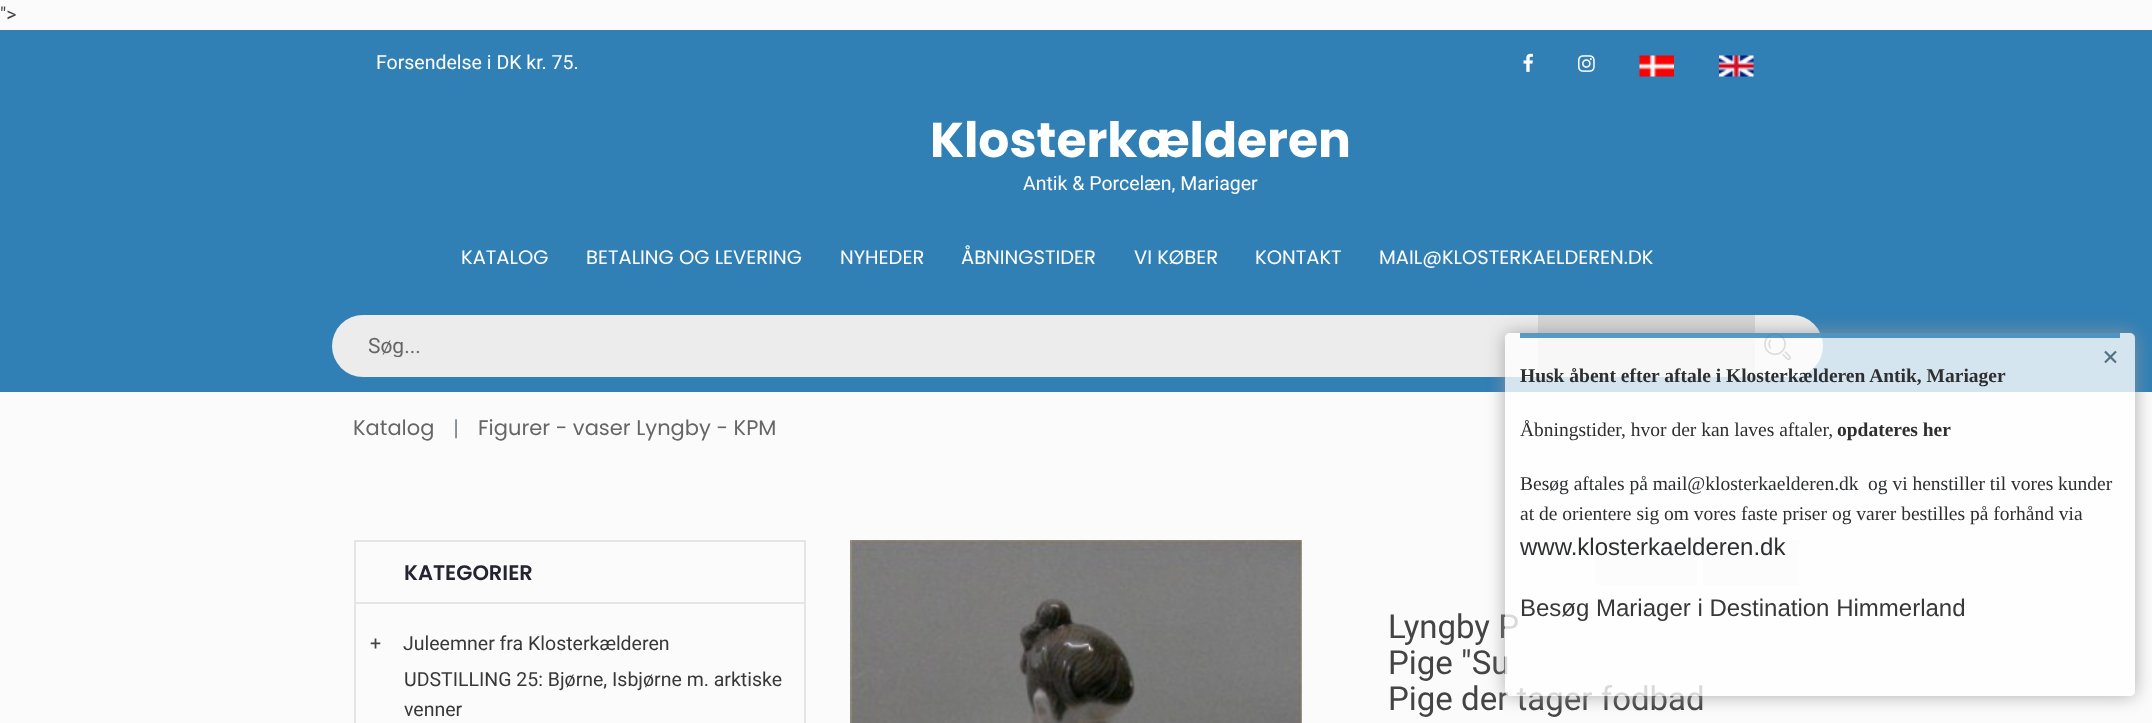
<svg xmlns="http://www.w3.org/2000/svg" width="2152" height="723">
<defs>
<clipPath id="clip1"><rect x="369" y="333" width="1370" height="24"/></clipPath>
<clipPath id="clip2"><path d="M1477 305h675v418h-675zm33 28h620c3 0 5 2 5 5v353c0 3-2 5-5 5h-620c-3 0-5-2-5-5v-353c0-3 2-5 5-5z" clip-rule="evenodd"/></clipPath>
</defs>
<rect width="100%" height="100%" fill="#fbfbfb"/>
<text x="0" y="21" style="font-family:Roboto;font-size:19.5px;fill:#444">"&gt;</text>
<rect y="30" width="2152" height="362" fill="#307fb5"/>
<text x="376" y="69" style="font-family:Roboto;font-size:19.5px;fill:#fff">Forsendelse i DK kr. 75.</text>
<image x="1523" y="53" width="10" height="19" href="media/1.png"/>
<image x="1578" y="55" width="17" height="17" href="media/2.png"/>
<image x="1639" y="55" width="35" height="22" href="media/3.png"/>
<image x="1719" y="55" width="35" height="22" href="media/4.png"/>
<text x="930" y="157" style="font-family:Poppins;font-size:48.75px;font-weight:bold;fill:#fff">Klosterkælderen</text>
<text x="1023" y="190" style="font-family:Roboto;font-size:19.5px;fill:#fff">Antik &amp; Porcelæn, Mariager</text>
<text x="461" y="264" style="font-family:Poppins;font-size:19.5px;fill:#fff">KATALOG</text>
<text x="586" y="264" style="font-family:Poppins;font-size:19.5px;fill:#fff">BETALING OG LEVERING</text>
<text x="840" y="264" style="font-family:Poppins;font-size:19.5px;fill:#fff">NYHEDER</text>
<text x="961" y="264" style="font-family:Poppins;font-size:19.5px;fill:#fff">ÅBNINGSTIDER</text>
<text x="1134" y="264" style="font-family:Poppins;font-size:19.5px;fill:#fff">VI KØBER</text>
<text x="1255" y="264" style="font-family:Poppins;font-size:19.5px;fill:#fff">KONTAKT</text>
<text x="1379" y="264" style="font-family:Poppins;font-size:19.5px;fill:#fff">MAIL@KLOSTERKAELDEREN.DK</text>
<rect x="332" y="315" width="1491" height="62" rx="31" fill="#ececec"/>
<g clip-path="url(#clip1)">
<text x="368" y="353" style="font-family:Roboto;font-size:21px;fill:#666">Søg...</text>
</g>
<rect x="1538" y="315" width="217" height="62" fill="#d5d5d5"/>
<image x="1764" y="333" width="27" height="28" href="media/5.png"/>
<text x="353" y="435" style="font-family:Poppins;font-size:21px;fill:#666">Katalog</text>
<text x="453" y="436" style="font-family:Poppins;font-size:21px;fill:#868e96">|</text>
<text x="478" y="435" style="font-family:Poppins;font-size:21px;fill:#666">Figurer - vaser Lyngby - KPM</text>
<rect x="355" y="541" width="450" height="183" fill="none" stroke="#e5e5e5" stroke-width="2"/>
<rect x="356" y="602" width="448" height="2" fill="#e5e5e5"/>
<text x="404" y="580" style="font-family:Poppins;font-size:21px;font-weight:600;fill:#252531">KATEGORIER</text>
<text x="370" y="650" style="font-family:Roboto;font-size:19.5px;fill:#444">+</text>
<text x="403" y="650" style="font-family:Roboto;font-size:19.5px;fill:#383838">Juleemner fra Klosterkælderen</text>
<text x="404" y="686" style="font-family:Roboto;font-size:19.5px;fill:#383838">UDSTILLING 25: Bjørne, Isbjørne m. arktiske</text>
<text x="404" y="716" style="font-family:Roboto;font-size:19.5px;fill:#383838">venner</text>
<image x="850" y="540" width="452" height="183" href="media/6.png"/>
<rect x="1595" y="540" width="102" height="45" fill="#efefef"/>
<rect x="1703" y="540" width="96" height="45" fill="#efefef"/>
<text x="1388" y="638" style="font-family:Roboto;font-size:33px;fill:#444">Lyngby P</text>
<text x="1388" y="674" style="font-family:Roboto;font-size:33px;fill:#444">Pige "Su</text>
<text x="1388" y="710" style="font-family:Roboto;font-size:33px;fill:#444">Pige der tager fodbad</text>
<g clip-path="url(#clip2)">
<rect x="1505" y="333" width="630" height="363" rx="5" fill="#999999cc" filter="blur(9px)"/>
</g>
<rect x="1505" y="333" width="630" height="363" rx="5" fill="#ffffffcc"/>
<text x="2102" y="367" style="font-family:Liberation Serif;font-size:30px;font-weight:bold;fill:#536f82">×</text>
<rect x="1520" y="333" width="600" height="5" fill="#307fb5cc"/>
<text x="1520" y="382" style="font-family:Liberation Serif;font-size:19.5px;font-weight:bold;fill:#2d2f31">Husk åbent efter aftale i Klosterkælderen Antik, Mariager</text>
<text x="1520" y="436" style="font-family:Liberation Serif;font-size:19.5px;fill:#2d2f31">Åbningstider, hvor der kan laves aftaler,</text>
<text x="1837" y="436" style="font-family:Liberation Serif;font-size:19.5px;font-weight:bold;fill:#2d2f31">opdateres her</text>
<text x="1520" y="490" style="font-family:Liberation Serif;font-size:19.5px;fill:#2d2f31">Besøg aftales på mail@klosterkaelderen.dk</text>
<text x="1868" y="490" style="font-family:Liberation Serif;font-size:19.5px;fill:#2d2f31">og vi henstiller til vores kunder</text>
<text x="1520" y="520" style="font-family:Liberation Serif;font-size:19.5px;fill:#2d2f31">at de orientere sig om vores faste priser og varer bestilles på forhånd via</text>
<text x="1520" y="555" style="font-family:Liberation Sans;font-size:24px;fill:#2d2f31">www.klosterkaelderen.dk</text>
<text x="1520" y="616" style="font-family:Liberation Sans;font-size:24px;fill:#383838">Besøg Mariager i Destination Himmerland</text>
</svg>
